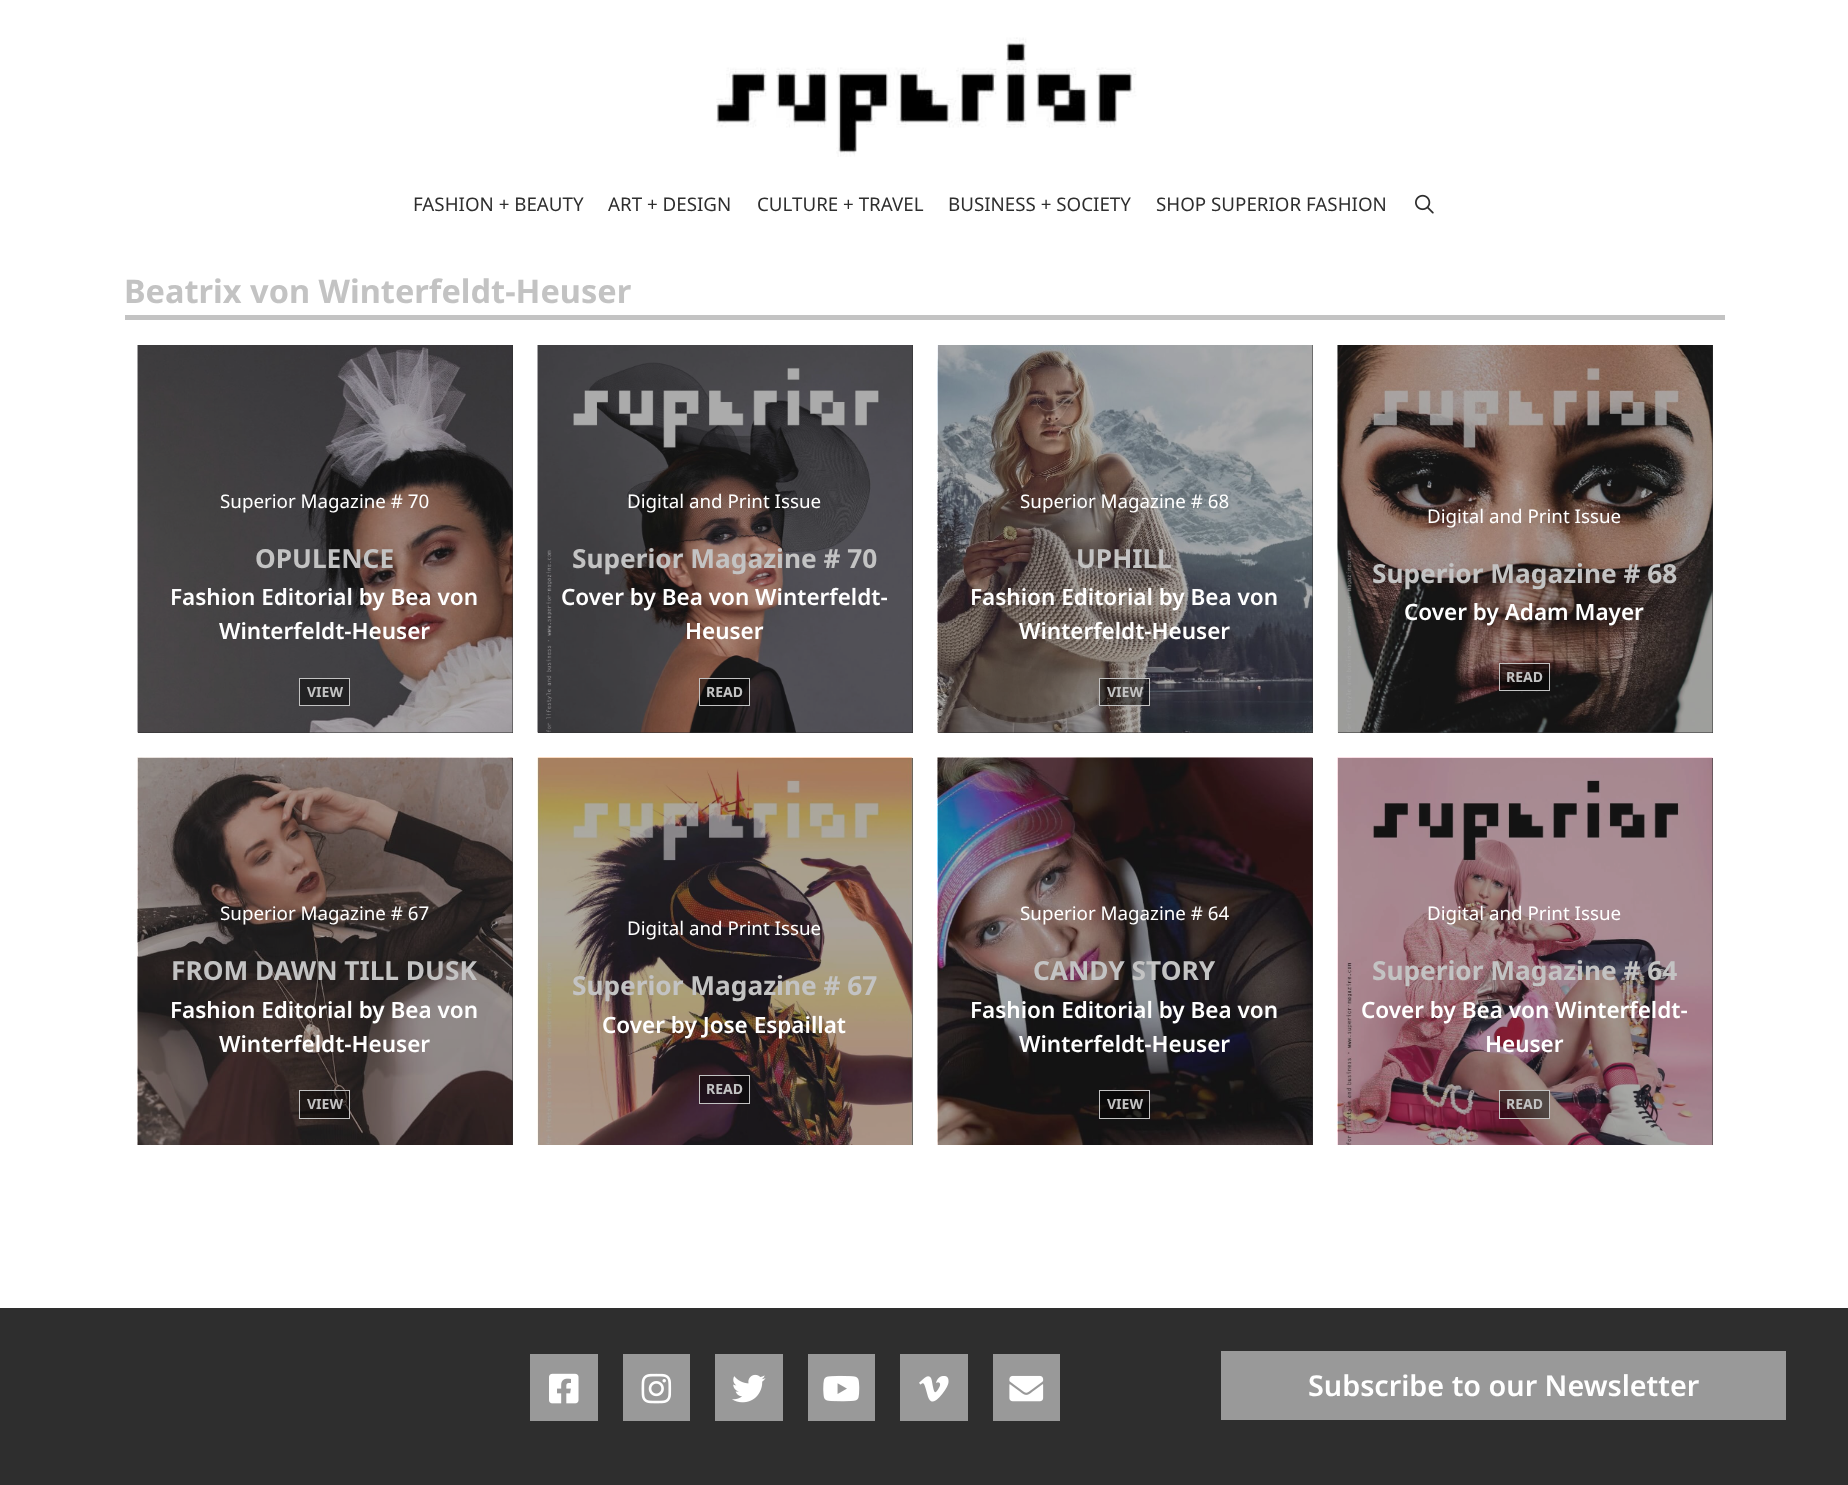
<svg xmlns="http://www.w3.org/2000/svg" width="1848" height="1485">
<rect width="100%" height="100%" fill="#fff"/>
<image x="716" y="37" width="421" height="120" href="media/1.png"/>
<text x="413" y="211" style="font-family:Noto Sans;font-size:18.75px;fill:#2e2e2e">FASHION + BEAUTY</text>
<text x="608" y="211" style="font-family:Noto Sans;font-size:18.75px;fill:#2e2e2e">ART + DESIGN</text>
<text x="757" y="211" style="font-family:Noto Sans;font-size:18.75px;fill:#2e2e2e">CULTURE + TRAVEL</text>
<text x="948" y="211" style="font-family:Noto Sans;font-size:18.75px;fill:#2e2e2e">BUSINESS + SOCIETY</text>
<text x="1156" y="211" style="font-family:Noto Sans;font-size:18.75px;fill:#2e2e2e">SHOP SUPERIOR FASHION</text>
<image x="1415" y="194" width="19" height="20" href="media/2.png"/>
<rect x="125" y="315" width="1600" height="5" fill="#c3c3c3"/>
<text x="124" y="303" style="font-family:Noto Sans;font-size:32.5px;font-weight:bold;fill:#c3c3c3">Beatrix von Winterfeldt-Heuser</text>
<rect x="138" y="345" width="375" height="388" fill="#2e2e2e"/>
<image x="137" y="345" width="376" height="388" href="media/3.png"/>
<text x="220" y="508" style="font-family:Noto Sans;font-size:18.75px;fill:#fff">Superior Magazine # 70</text>
<text x="255" y="568" style="font-family:Noto Sans;font-size:26.25px;font-weight:bold;fill:#c3c3c3">OPULENCE</text>
<text x="170" y="605" style="font-family:Noto Sans;font-size:22.5px;font-weight:600;fill:#fff">Fashion Editorial by Bea von</text>
<text x="219" y="639" style="font-family:Noto Sans;font-size:22.5px;font-weight:600;fill:#fff">Winterfeldt-Heuser</text>
<rect x="299.5" y="678.5" width="50" height="27" fill="#0000007a" stroke="#c3c3c3"/>
<text x="307" y="697" style="font-family:Noto Sans;font-size:14px;font-weight:bold;fill:#c3c3c3">VIEW</text>
<rect x="538" y="345" width="375" height="388" fill="#2e2e2e"/>
<image x="537" y="345" width="376" height="388" href="media/4.png"/>
<text x="627" y="508" style="font-family:Noto Sans;font-size:18.75px;fill:#fff">Digital and Print Issue</text>
<text x="572" y="568" style="font-family:Noto Sans;font-size:26.25px;font-weight:bold;fill:#c3c3c3">Superior Magazine # 70</text>
<text x="561" y="605" style="font-family:Noto Sans;font-size:22.5px;font-weight:600;fill:#fff">Cover by Bea von Winterfeldt-</text>
<text x="685" y="639" style="font-family:Noto Sans;font-size:22.5px;font-weight:600;fill:#fff">Heuser</text>
<rect x="699.5" y="678.5" width="50" height="27" fill="#0000007a" stroke="#c3c3c3"/>
<text x="706" y="697" style="font-family:Noto Sans;font-size:14px;font-weight:bold;fill:#c3c3c3">READ</text>
<rect x="938" y="345" width="375" height="388" fill="#2e2e2e"/>
<image x="937" y="345" width="376" height="388" href="media/5.png"/>
<text x="1020" y="508" style="font-family:Noto Sans;font-size:18.75px;fill:#fff">Superior Magazine # 68</text>
<text x="1076" y="568" style="font-family:Noto Sans;font-size:26.25px;font-weight:bold;fill:#c3c3c3">UPHILL</text>
<text x="970" y="605" style="font-family:Noto Sans;font-size:22.5px;font-weight:600;fill:#fff">Fashion Editorial by Bea von</text>
<text x="1019" y="639" style="font-family:Noto Sans;font-size:22.5px;font-weight:600;fill:#fff">Winterfeldt-Heuser</text>
<rect x="1099.5" y="678.5" width="50" height="27" fill="#0000007a" stroke="#c3c3c3"/>
<text x="1107" y="697" style="font-family:Noto Sans;font-size:14px;font-weight:bold;fill:#c3c3c3">VIEW</text>
<rect x="1338" y="345" width="375" height="388" fill="#2e2e2e"/>
<image x="1337" y="345" width="376" height="388" href="media/6.png"/>
<text x="1427" y="523" style="font-family:Noto Sans;font-size:18.75px;fill:#fff">Digital and Print Issue</text>
<text x="1372" y="583" style="font-family:Noto Sans;font-size:26.25px;font-weight:bold;fill:#c3c3c3">Superior Magazine # 68</text>
<text x="1404" y="620" style="font-family:Noto Sans;font-size:22.5px;font-weight:600;fill:#fff">Cover by Adam Mayer</text>
<rect x="1499.5" y="663.5" width="50" height="27" fill="#0000007a" stroke="#c3c3c3"/>
<text x="1506" y="682" style="font-family:Noto Sans;font-size:14px;font-weight:bold;fill:#c3c3c3">READ</text>
<rect x="512" y="758" width="1" height="387" fill="#2e2e2e"/>
<image x="137" y="757" width="376" height="388" href="media/7.png"/>
<text x="220" y="920" style="font-family:Noto Sans;font-size:18.75px;fill:#fff">Superior Magazine # 67</text>
<text x="171" y="980" style="font-family:Noto Sans;font-size:26.25px;font-weight:bold;fill:#c3c3c3">FROM DAWN TILL DUSK</text>
<text x="170" y="1018" style="font-family:Noto Sans;font-size:22.5px;font-weight:600;fill:#fff">Fashion Editorial by Bea von</text>
<text x="219" y="1052" style="font-family:Noto Sans;font-size:22.5px;font-weight:600;fill:#fff">Winterfeldt-Heuser</text>
<rect x="299.5" y="1090.5" width="50" height="28" fill="#0000007a" stroke="#c3c3c3"/>
<text x="307" y="1109" style="font-family:Noto Sans;font-size:14px;font-weight:bold;fill:#c3c3c3">VIEW</text>
<rect x="912" y="758" width="1" height="387" fill="#2e2e2e"/>
<image x="537" y="757" width="376" height="388" href="media/8.png"/>
<text x="627" y="935" style="font-family:Noto Sans;font-size:18.75px;fill:#fff">Digital and Print Issue</text>
<text x="572" y="995" style="font-family:Noto Sans;font-size:26.25px;font-weight:bold;fill:#c3c3c3">Superior Magazine # 67</text>
<text x="602" y="1033" style="font-family:Noto Sans;font-size:22.5px;font-weight:600;fill:#fff">Cover by Jose Espaillat</text>
<rect x="699.5" y="1075.5" width="50" height="28" fill="#0000007a" stroke="#c3c3c3"/>
<text x="706" y="1094" style="font-family:Noto Sans;font-size:14px;font-weight:bold;fill:#c3c3c3">READ</text>
<rect x="1312" y="758" width="1" height="387" fill="#2e2e2e"/>
<image x="937" y="757" width="376" height="388" href="media/9.png"/>
<text x="1020" y="920" style="font-family:Noto Sans;font-size:18.75px;fill:#fff">Superior Magazine # 64</text>
<text x="1033" y="980" style="font-family:Noto Sans;font-size:26.25px;font-weight:bold;fill:#c3c3c3">CANDY STORY</text>
<text x="970" y="1018" style="font-family:Noto Sans;font-size:22.5px;font-weight:600;fill:#fff">Fashion Editorial by Bea von</text>
<text x="1019" y="1052" style="font-family:Noto Sans;font-size:22.5px;font-weight:600;fill:#fff">Winterfeldt-Heuser</text>
<rect x="1099.5" y="1090.5" width="50" height="28" fill="#0000007a" stroke="#c3c3c3"/>
<text x="1107" y="1109" style="font-family:Noto Sans;font-size:14px;font-weight:bold;fill:#c3c3c3">VIEW</text>
<rect x="1712" y="758" width="1" height="387" fill="#2e2e2e"/>
<image x="1337" y="757" width="376" height="388" href="media/10.png"/>
<text x="1427" y="920" style="font-family:Noto Sans;font-size:18.75px;fill:#fff">Digital and Print Issue</text>
<text x="1372" y="980" style="font-family:Noto Sans;font-size:26.25px;font-weight:bold;fill:#c3c3c3">Superior Magazine # 64</text>
<text x="1361" y="1018" style="font-family:Noto Sans;font-size:22.5px;font-weight:600;fill:#fff">Cover by Bea von Winterfeldt-</text>
<text x="1485" y="1052" style="font-family:Noto Sans;font-size:22.5px;font-weight:600;fill:#fff">Heuser</text>
<rect x="1499.5" y="1090.5" width="50" height="28" fill="#0000007a" stroke="#c3c3c3"/>
<text x="1506" y="1109" style="font-family:Noto Sans;font-size:14px;font-weight:bold;fill:#c3c3c3">READ</text>
<rect y="1308" width="1848" height="177" fill="#2e2e2e"/>
<rect x="530" y="1354" width="68" height="67" fill="#999"/>
<image x="549" y="1373" width="30" height="31" href="media/11.png"/>
<rect x="623" y="1354" width="67" height="67" fill="#999"/>
<image x="641" y="1373" width="31" height="31" href="media/12.png"/>
<rect x="715" y="1354" width="68" height="67" fill="#999"/>
<image x="732" y="1374" width="34" height="29" href="media/13.png"/>
<rect x="808" y="1354" width="67" height="67" fill="#999"/>
<image x="823" y="1375" width="37" height="27" href="media/14.png"/>
<rect x="900" y="1354" width="68" height="67" fill="#999"/>
<image x="919" y="1376" width="30" height="26" href="media/15.png"/>
<rect x="993" y="1354" width="67" height="67" fill="#999"/>
<image x="1009" y="1375" width="35" height="27" href="media/16.png"/>
<rect x="1221" y="1351" width="565" height="69" fill="#999"/>
<text x="1308" y="1396" style="font-family:Noto Sans;font-size:28.75px;font-weight:600;fill:#fff">Subscribe to our Newsletter</text>
</svg>
